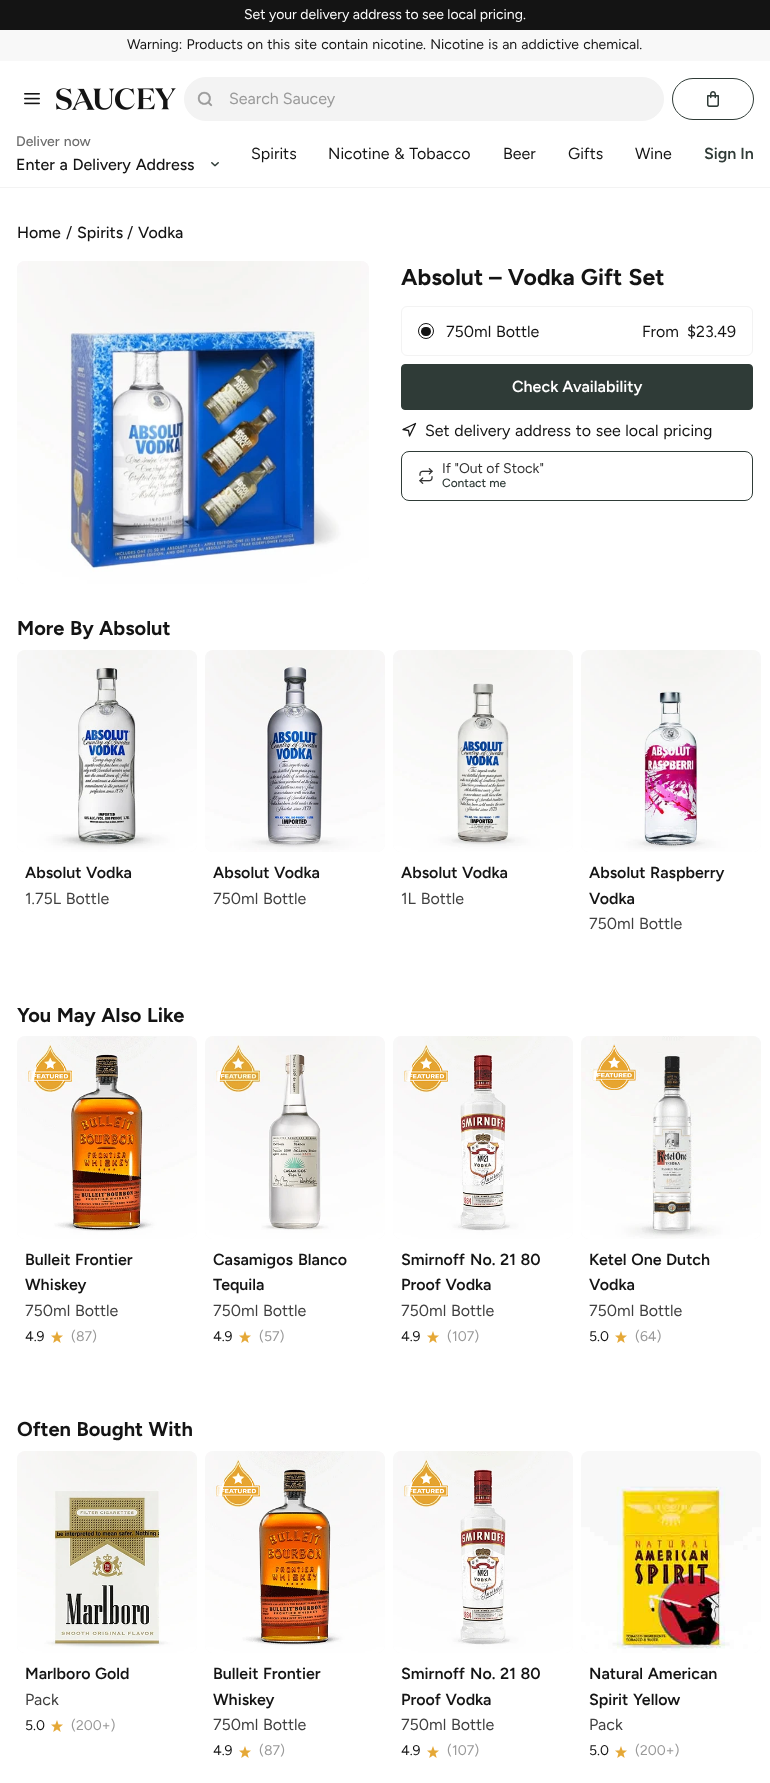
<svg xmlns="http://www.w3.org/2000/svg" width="770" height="1783">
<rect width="100%" height="100%" fill="#fff"/>
<rect width="770" height="30" fill="#141414"/>
<text x="244" y="19" style="font-family:Figtree;font-size:14px;fill:#fff">Set your delivery address to see local pricing.</text>
<rect y="30" width="770" height="31" fill="#f8f8f8"/>
<text x="127" y="49" word-spacing="0.75" style="font-family:Figtree;font-size:14px;fill:#141414">Warning: Products on this site contain nicotine. Nicotine is an addictive chemical.</text>
<rect y="187" width="770" height="1" fill="#f3f3f3"/>
<image x="24" y="93" width="16" height="12" href="media/1.png"/>
<image x="56" y="88" width="120" height="22" href="media/2.png"/>
<rect x="184.5" y="77.5" width="479" height="43" rx="21.5" fill="#f3f3f3" stroke="#f3f3f3"/>
<image x="197" y="91" width="16" height="16" href="media/3.png"/>
<text x="229" y="104" style="font-family:Figtree;font-size:16px;fill:#999">Search Saucey</text>
<rect x="672.5" y="78.5" width="81" height="41" rx="20.5" fill="none" stroke="#2f3b37"/>
<image x="707" y="91" width="12" height="16" href="media/4.png"/>
<text x="16" y="146" word-spacing="0.75" style="font-family:Figtree;font-size:14px;font-weight:500;fill:#6d6d6d">Deliver now</text>
<text x="16" y="170" word-spacing="0.75" style="font-family:Figtree;font-size:16px;font-weight:500;fill:#141414">Enter a Delivery Address</text>
<image x="211" y="162" width="8" height="5" href="media/5.png"/>
<text x="251" y="159" style="font-family:Figtree;font-size:16px;fill:#141414">Spirits</text>
<text x="328" y="159" word-spacing="0.75" style="font-family:Figtree;font-size:16px;fill:#141414">Nicotine &amp; Tobacco</text>
<text x="503" y="159" style="font-family:Figtree;font-size:16px;fill:#141414">Beer</text>
<text x="568" y="159" style="font-family:Figtree;font-size:16px;fill:#141414">Gifts</text>
<text x="635" y="159" style="font-family:Figtree;font-size:16px;fill:#141414">Wine</text>
<text x="704" y="159" style="font-family:Figtree;font-size:16px;font-weight:600;fill:#2f3b37">Sign In</text>
<text x="17" y="238" style="font-family:Figtree;font-size:16px;font-weight:500;fill:#141414">Home</text>
<text x="66" y="238" style="font-family:Figtree;font-size:16px;fill:#141414">/</text>
<text x="77" y="238" style="font-family:Figtree;font-size:16px;font-weight:500;fill:#141414">Spirits</text>
<text x="127" y="238" style="font-family:Figtree;font-size:16px;fill:#141414">/</text>
<text x="138" y="238" style="font-family:Figtree;font-size:16px;font-weight:500;fill:#141414">Vodka</text>
<rect x="17" y="261" width="352" height="323" rx="8" fill="#f8f8f8"/>
<image x="17" y="261" width="352" height="323" href="media/6.png"/>
<text x="401" y="285" style="font-family:Figtree;font-size:23px;font-weight:bold;fill:#141414">Absolut</text>
<text x="489" y="285" word-spacing="0.75" style="font-family:Figtree;font-size:23px;font-weight:bold;fill:#141414">– Vodka Gift Set</text>
<rect x="401.5" y="306.5" width="351" height="49" rx="5.5" fill="none" stroke="#f3f3f3"/>
<circle cx="426" cy="331" r="7.5" fill="none" stroke="#141414"/>
<rect x="421" y="327" width="10" height="9" rx="4.5" fill="#141414"/>
<text x="446" y="337" word-spacing="0.75" style="font-family:Figtree;font-size:16px;fill:#141414">750ml Bottle</text>
<text x="642" y="337" style="font-family:Figtree;font-size:16px;fill:#141414">From</text>
<text x="687" y="337" style="font-family:Figtree;font-size:16px;fill:#141414">$23.49</text>
<rect x="401.5" y="364.5" width="351" height="45" rx="3.5" fill="#2f3b37" stroke="#2f3b37"/>
<text x="512" y="392" style="font-family:Figtree;font-size:16px;font-weight:600;fill:#fff">Check Availability</text>
<path d="M403 429.5l12.5-6l-6 12.5l-1-5.5z" fill="none" stroke="#141414" stroke-width="1.3" stroke-linecap="round" stroke-linejoin="round"/>
<text x="425" y="436" word-spacing="0.75" style="font-family:Figtree;font-size:16px;fill:#141414">Set delivery address to see local pricing</text>
<rect x="401.5" y="451.5" width="351" height="49" rx="7.5" fill="none" stroke="#2f3b37"/>
<image x="419" y="468" width="14" height="16" href="media/7.png"/>
<text x="442" y="473" style="font-family:Figtree;font-size:14px;fill:#333">If "Out of Stock"</text>
<text x="442" y="487" style="font-family:Figtree;font-size:12px;font-weight:500;fill:#2f3b37">Contact me</text>
<text x="17" y="635" word-spacing="0.75" style="font-family:Figtree;font-size:20px;font-weight:bold;fill:#141414">More By</text>
<text x="99" y="635" style="font-family:Figtree;font-size:20px;font-weight:bold;fill:#141414">Absolut</text>
<rect x="17" y="650" width="180" height="202" rx="8" fill="#f8f8f8"/>
<image x="17" y="650" width="180" height="202" href="media/8.png"/>
<text x="25" y="878" style="font-family:Figtree;font-size:16px;font-weight:600;fill:#141414">Absolut</text>
<text x="86" y="878" style="font-family:Figtree;font-size:16px;font-weight:600;fill:#141414">Vodka</text>
<text x="25" y="904" word-spacing="0.75" style="font-family:Figtree;font-size:16px;fill:#404040">1.75L Bottle</text>
<rect x="205" y="650" width="180" height="202" rx="8" fill="#f8f8f8"/>
<image x="205" y="650" width="180" height="202" href="media/9.png"/>
<text x="213" y="878" style="font-family:Figtree;font-size:16px;font-weight:600;fill:#141414">Absolut</text>
<text x="274" y="878" style="font-family:Figtree;font-size:16px;font-weight:600;fill:#141414">Vodka</text>
<text x="213" y="904" word-spacing="0.75" style="font-family:Figtree;font-size:16px;fill:#404040">750ml Bottle</text>
<rect x="393" y="650" width="180" height="202" rx="8" fill="#f8f8f8"/>
<image x="393" y="650" width="180" height="202" href="media/10.png"/>
<text x="401" y="878" style="font-family:Figtree;font-size:16px;font-weight:600;fill:#141414">Absolut</text>
<text x="462" y="878" style="font-family:Figtree;font-size:16px;font-weight:600;fill:#141414">Vodka</text>
<text x="401" y="904" word-spacing="0.75" style="font-family:Figtree;font-size:16px;fill:#404040">1L Bottle</text>
<rect x="581" y="650" width="180" height="202" rx="8" fill="#f8f8f8"/>
<image x="581" y="650" width="180" height="202" href="media/11.png"/>
<text x="589" y="878" style="font-family:Figtree;font-size:16px;font-weight:600;fill:#141414">Absolut</text>
<text x="650" y="878" style="font-family:Figtree;font-size:16px;font-weight:600;fill:#141414">Raspberry</text>
<text x="589" y="904" style="font-family:Figtree;font-size:16px;font-weight:600;fill:#141414">Vodka</text>
<text x="589" y="929" word-spacing="0.75" style="font-family:Figtree;font-size:16px;fill:#404040">750ml Bottle</text>
<text x="17" y="1022" word-spacing="0.75" style="font-family:Figtree;font-size:20px;font-weight:bold;fill:#141414">You May Also Like</text>
<rect x="17" y="1036" width="180" height="203" rx="8" fill="#f8f8f8"/>
<image x="17" y="1036" width="180" height="203" href="media/12.png"/>
<text x="25" y="1265" style="font-family:Figtree;font-size:16px;font-weight:600;fill:#141414">Bulleit</text>
<text x="75" y="1265" style="font-family:Figtree;font-size:16px;font-weight:600;fill:#141414">Frontier</text>
<text x="25" y="1290" style="font-family:Figtree;font-size:16px;font-weight:600;fill:#141414">Whiskey</text>
<text x="25" y="1316" word-spacing="0.75" style="font-family:Figtree;font-size:16px;fill:#404040">750ml Bottle</text>
<text x="25" y="1341" style="font-family:Figtree;font-size:14px;fill:#141414">4.9</text>
<image x="51" y="1331" width="12" height="12" href="media/13.png"/>
<text x="71" y="1341" style="font-family:Figtree;font-size:14px;fill:#999">(87)</text>
<rect x="205" y="1036" width="180" height="203" rx="8" fill="#f8f8f8"/>
<image x="205" y="1036" width="180" height="203" href="media/14.png"/>
<text x="213" y="1265" style="font-family:Figtree;font-size:16px;font-weight:600;fill:#141414">Casamigos</text>
<text x="298" y="1265" style="font-family:Figtree;font-size:16px;font-weight:600;fill:#141414">Blanco</text>
<text x="213" y="1290" style="font-family:Figtree;font-size:16px;font-weight:600;fill:#141414">Tequila</text>
<text x="213" y="1316" word-spacing="0.75" style="font-family:Figtree;font-size:16px;fill:#404040">750ml Bottle</text>
<text x="213" y="1341" style="font-family:Figtree;font-size:14px;fill:#141414">4.9</text>
<image x="239" y="1331" width="12" height="12" href="media/13.png"/>
<text x="259" y="1341" style="font-family:Figtree;font-size:14px;fill:#999">(57)</text>
<rect x="393" y="1036" width="180" height="203" rx="8" fill="#f8f8f8"/>
<image x="393" y="1036" width="180" height="203" href="media/15.png"/>
<text x="401" y="1265" style="font-family:Figtree;font-size:16px;font-weight:600;fill:#141414">Smirnoff</text>
<text x="470" y="1265" word-spacing="0.75" style="font-family:Figtree;font-size:16px;font-weight:600;fill:#141414">No. 21 80</text>
<text x="401" y="1290" word-spacing="0.75" style="font-family:Figtree;font-size:16px;font-weight:600;fill:#141414">Proof Vodka</text>
<text x="401" y="1316" word-spacing="0.75" style="font-family:Figtree;font-size:16px;fill:#404040">750ml Bottle</text>
<text x="401" y="1341" style="font-family:Figtree;font-size:14px;fill:#141414">4.9</text>
<image x="427" y="1331" width="12" height="12" href="media/13.png"/>
<text x="447" y="1341" style="font-family:Figtree;font-size:14px;fill:#999">(107)</text>
<rect x="581" y="1036" width="180" height="203" rx="8" fill="#f8f8f8"/>
<image x="581" y="1036" width="180" height="203" href="media/16.png"/>
<text x="589" y="1265" word-spacing="0.75" style="font-family:Figtree;font-size:16px;font-weight:600;fill:#141414">Ketel One</text>
<text x="666" y="1265" style="font-family:Figtree;font-size:16px;font-weight:600;fill:#141414">Dutch</text>
<text x="589" y="1290" style="font-family:Figtree;font-size:16px;font-weight:600;fill:#141414">Vodka</text>
<text x="589" y="1316" word-spacing="0.75" style="font-family:Figtree;font-size:16px;fill:#404040">750ml Bottle</text>
<text x="589" y="1341" style="font-family:Figtree;font-size:14px;fill:#141414">5.0</text>
<image x="615" y="1331" width="12" height="12" href="media/13.png"/>
<text x="635" y="1341" style="font-family:Figtree;font-size:14px;fill:#999">(64)</text>
<text x="17" y="1436" word-spacing="0.75" style="font-family:Figtree;font-size:20px;font-weight:bold;fill:#141414">Often Bought With</text>
<rect x="17" y="1451" width="180" height="202" rx="8" fill="#f8f8f8"/>
<image x="17" y="1451" width="180" height="202" href="media/17.png"/>
<text x="25" y="1679" style="font-family:Figtree;font-size:16px;font-weight:600;fill:#141414">Marlboro</text>
<text x="95" y="1679" style="font-family:Figtree;font-size:16px;font-weight:600;fill:#141414">Gold</text>
<text x="25" y="1705" style="font-family:Figtree;font-size:16px;fill:#404040">Pack</text>
<text x="25" y="1730" style="font-family:Figtree;font-size:14px;fill:#141414">5.0</text>
<image x="51" y="1720" width="12" height="12" href="media/13.png"/>
<text x="71" y="1730" style="font-family:Figtree;font-size:14px;fill:#999">(200+)</text>
<rect x="205" y="1451" width="180" height="202" rx="8" fill="#f8f8f8"/>
<image x="205" y="1451" width="180" height="202" href="media/18.png"/>
<text x="213" y="1679" style="font-family:Figtree;font-size:16px;font-weight:600;fill:#141414">Bulleit</text>
<text x="263" y="1679" style="font-family:Figtree;font-size:16px;font-weight:600;fill:#141414">Frontier</text>
<text x="213" y="1705" style="font-family:Figtree;font-size:16px;font-weight:600;fill:#141414">Whiskey</text>
<text x="213" y="1730" word-spacing="0.75" style="font-family:Figtree;font-size:16px;fill:#404040">750ml Bottle</text>
<text x="213" y="1755" style="font-family:Figtree;font-size:14px;fill:#141414">4.9</text>
<image x="239" y="1746" width="12" height="12" href="media/13.png"/>
<text x="259" y="1755" style="font-family:Figtree;font-size:14px;fill:#999">(87)</text>
<rect x="393" y="1451" width="180" height="202" rx="8" fill="#f8f8f8"/>
<image x="393" y="1451" width="180" height="202" href="media/19.png"/>
<text x="401" y="1679" style="font-family:Figtree;font-size:16px;font-weight:600;fill:#141414">Smirnoff</text>
<text x="470" y="1679" word-spacing="0.75" style="font-family:Figtree;font-size:16px;font-weight:600;fill:#141414">No. 21 80</text>
<text x="401" y="1705" word-spacing="0.75" style="font-family:Figtree;font-size:16px;font-weight:600;fill:#141414">Proof Vodka</text>
<text x="401" y="1730" word-spacing="0.75" style="font-family:Figtree;font-size:16px;fill:#404040">750ml Bottle</text>
<text x="401" y="1755" style="font-family:Figtree;font-size:14px;fill:#141414">4.9</text>
<image x="427" y="1746" width="12" height="12" href="media/13.png"/>
<text x="447" y="1755" style="font-family:Figtree;font-size:14px;fill:#999">(107)</text>
<rect x="581" y="1451" width="180" height="202" rx="8" fill="#f8f8f8"/>
<image x="581" y="1486" width="180" height="167" href="media/20.png"/>
<text x="589" y="1679" word-spacing="0.75" style="font-family:Figtree;font-size:16px;font-weight:600;fill:#141414">Natural American</text>
<text x="589" y="1705" style="font-family:Figtree;font-size:16px;font-weight:600;fill:#141414">Spirit</text>
<text x="633" y="1705" style="font-family:Figtree;font-size:16px;font-weight:600;fill:#141414">Yellow</text>
<text x="589" y="1730" style="font-family:Figtree;font-size:16px;fill:#404040">Pack</text>
<text x="589" y="1755" style="font-family:Figtree;font-size:14px;fill:#141414">5.0</text>
<image x="615" y="1746" width="12" height="12" href="media/13.png"/>
<text x="635" y="1755" style="font-family:Figtree;font-size:14px;fill:#999">(200+)</text>
</svg>
